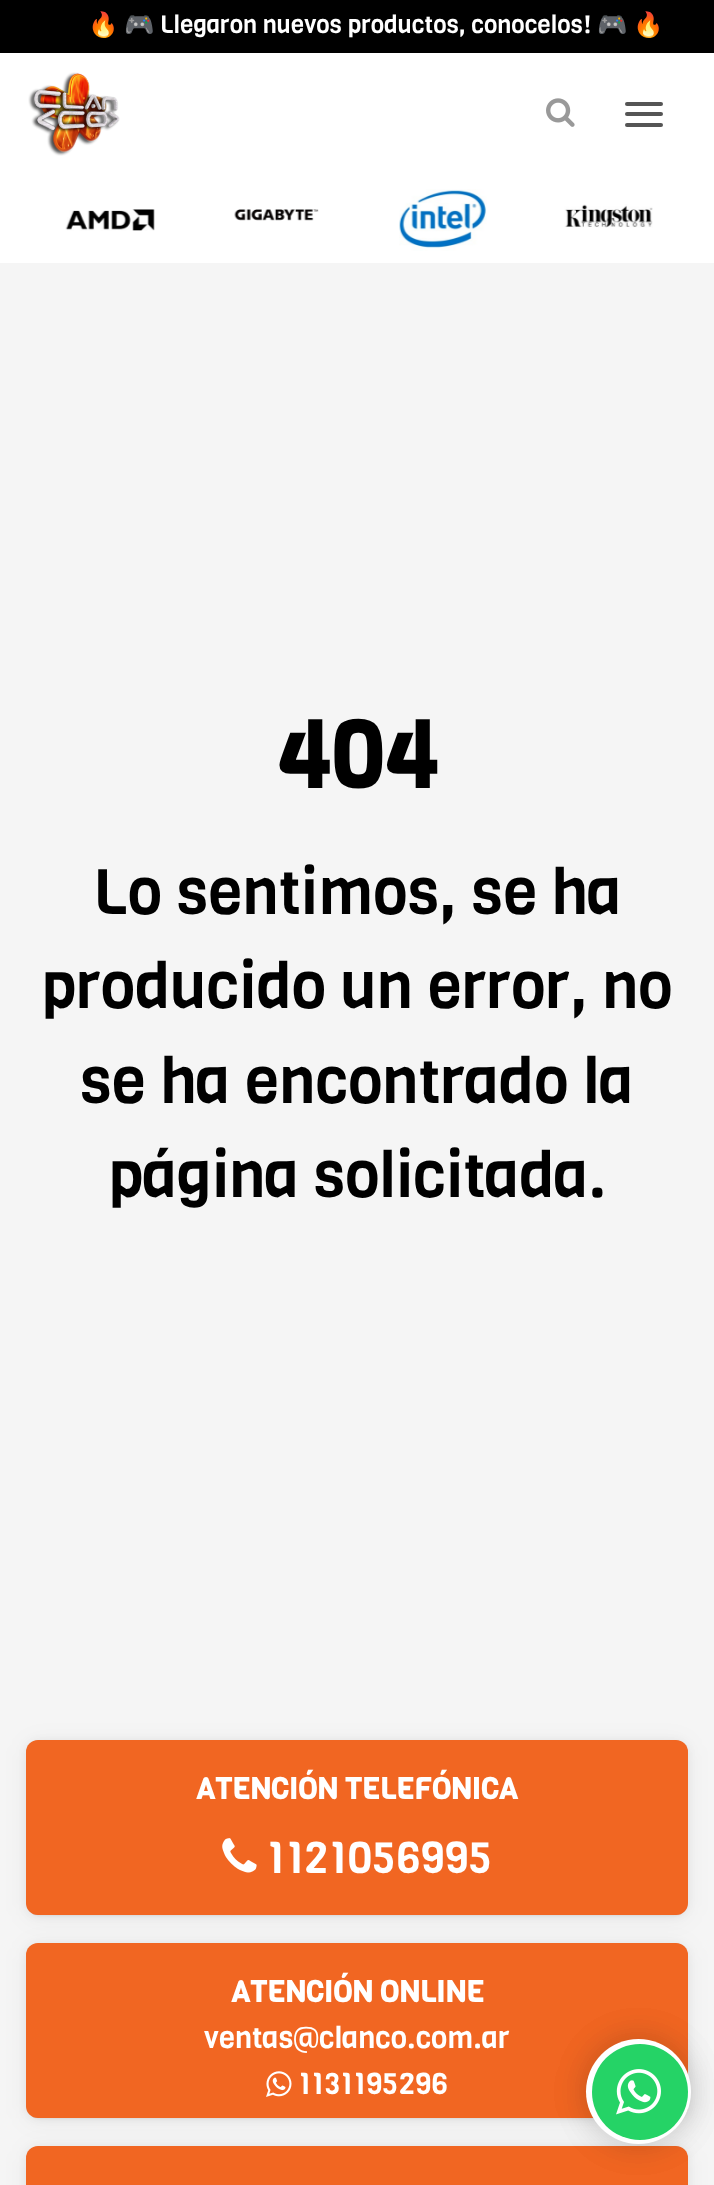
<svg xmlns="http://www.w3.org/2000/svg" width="714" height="2185">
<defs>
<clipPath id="clip1"><rect x="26" y="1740" width="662" height="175" rx="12"/></clipPath>
<clipPath id="clip2"><rect x="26" y="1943" width="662" height="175" rx="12"/></clipPath>
</defs>
<rect width="100%" height="100%" fill="#f5f5f5"/>
<rect width="714" height="53" fill="#000"/>
<text x="88" y="33" style="font-family:Noto Color Emoji;font-size:24.5px;fill:#fff">🔥</text>
<text x="124" y="33" style="font-family:Noto Color Emoji;font-size:24.5px;fill:#fff">🎮</text>
<text x="160" y="33" style="font-family:Viga;font-size:24.5px;fill:#fff">Llegaron nuevos productos, conocelos!</text>
<text x="597" y="33" style="font-family:Noto Color Emoji;font-size:24.5px;fill:#fff">🎮</text>
<text x="633" y="33" style="font-family:Noto Color Emoji;font-size:24.5px;fill:#fff">🔥</text>
<rect y="53" width="714" height="210" fill="#fff"/>
<image x="28" y="72" width="92" height="84" href="media/1.png"/>
<image x="546" y="98" width="29" height="29" href="media/2.png"/>
<rect x="625" y="102" width="38" height="4" rx="2" fill="#555"/>
<rect x="625" y="112" width="38" height="4" rx="2" fill="#555"/>
<rect x="625" y="123" width="38" height="4" rx="2" fill="#555"/>
<image x="65" y="209" width="90" height="22" href="media/3.png"/>
<image x="234" y="209" width="85" height="12" href="media/4.png"/>
<image x="399" y="189" width="88" height="62" href="media/5.png"/>
<image x="564" y="204" width="89" height="24" href="media/6.png"/>
<text x="276" y="788" style="font-family:Viga;font-size:93px;font-weight:bold;fill:#000">404</text>
<text x="93" y="914" style="font-family:Viga;font-size:63px;fill:#000">Lo sentimos, se ha</text>
<text x="41" y="1008" style="font-family:Viga;font-size:63px;fill:#000">producido un error, no</text>
<text x="80" y="1103" style="font-family:Viga;font-size:63px;fill:#000">se ha encontrado la</text>
<text x="108" y="1197" style="font-family:Viga;font-size:63px;fill:#000">página solicitada.</text>
<rect x="26" y="1741" width="662" height="175" rx="12" fill="#0000000d" filter="blur(4.5px)"/>
<rect x="30" y="1748" width="654" height="168" rx="9" fill="#0000000d" filter="blur(1px)"/>
<rect x="26" y="1743" width="662" height="175" rx="12" fill="#0000000d" filter="blur(12px)"/>
<g clip-path="url(#clip1)">
<rect x="46" y="1782" width="623" height="136" fill="#9c27b099" filter="blur(21px)"/>
<rect x="26" y="1748" width="662" height="175" rx="5" fill="#00000033" filter="blur(17.5px)"/>
</g>
<rect x="26" y="1740" width="662" height="175" rx="12" fill="#f16622"/>
<text x="196" y="1799" style="font-family:Viga;font-size:29.75px;font-weight:bold;fill:#fff">ATENCIÓN TELEFÓNICA</text>
<image x="222" y="1838" width="35" height="35" href="media/7.png"/>
<text x="266" y="1873" style="font-family:Viga;font-size:43.75px;fill:#fff">1121056995</text>
<rect x="26" y="1944" width="662" height="175" rx="12" fill="#0000000d" filter="blur(4.5px)"/>
<rect x="30" y="1951" width="654" height="168" rx="9" fill="#0000000d" filter="blur(1px)"/>
<rect x="26" y="1946" width="662" height="175" rx="12" fill="#0000000d" filter="blur(12px)"/>
<g clip-path="url(#clip2)">
<rect x="46" y="1985" width="623" height="136" fill="#00bcd499" filter="blur(21px)"/>
<rect x="26" y="1951" width="662" height="175" rx="5" fill="#00000033" filter="blur(17.5px)"/>
</g>
<rect x="26" y="1943" width="662" height="175" rx="12" fill="#f16622"/>
<text x="231" y="2002" style="font-family:Viga;font-size:29.75px;font-weight:bold;fill:#fff">ATENCIÓN ONLINE</text>
<text x="204" y="2048" style="font-family:Viga;font-size:29.75px;fill:#fff">ventas@clanco.com.ar</text>
<image x="266" y="2071" width="26" height="26" href="media/8.png"/>
<text x="298" y="2094" style="font-family:Viga;font-size:29.75px;fill:#fff">1131195296</text>
<rect x="26" y="2147" width="662" height="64" rx="12" fill="#0000000d" filter="blur(4.5px)"/>
<rect x="26" y="2149" width="662" height="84" rx="12" fill="#0000000d" filter="blur(12px)"/>
<rect x="26" y="2146" width="662" height="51" rx="12" fill="#f16622"/>
<rect x="586" y="2039" width="105" height="105" rx="52.5" fill="#0000001a" filter="blur(17.5px)"/>
<rect x="586" y="2039" width="105" height="105" rx="52.5" fill="#0000001a" filter="blur(17.5px)"/>
<circle cx="638.5" cy="2091.5" r="52.5" fill="#fff"/>
<circle cx="640" cy="2092" r="48" fill="#25d366"/>
<image x="616" y="2069" width="45" height="46" href="media/9.png"/>
</svg>
